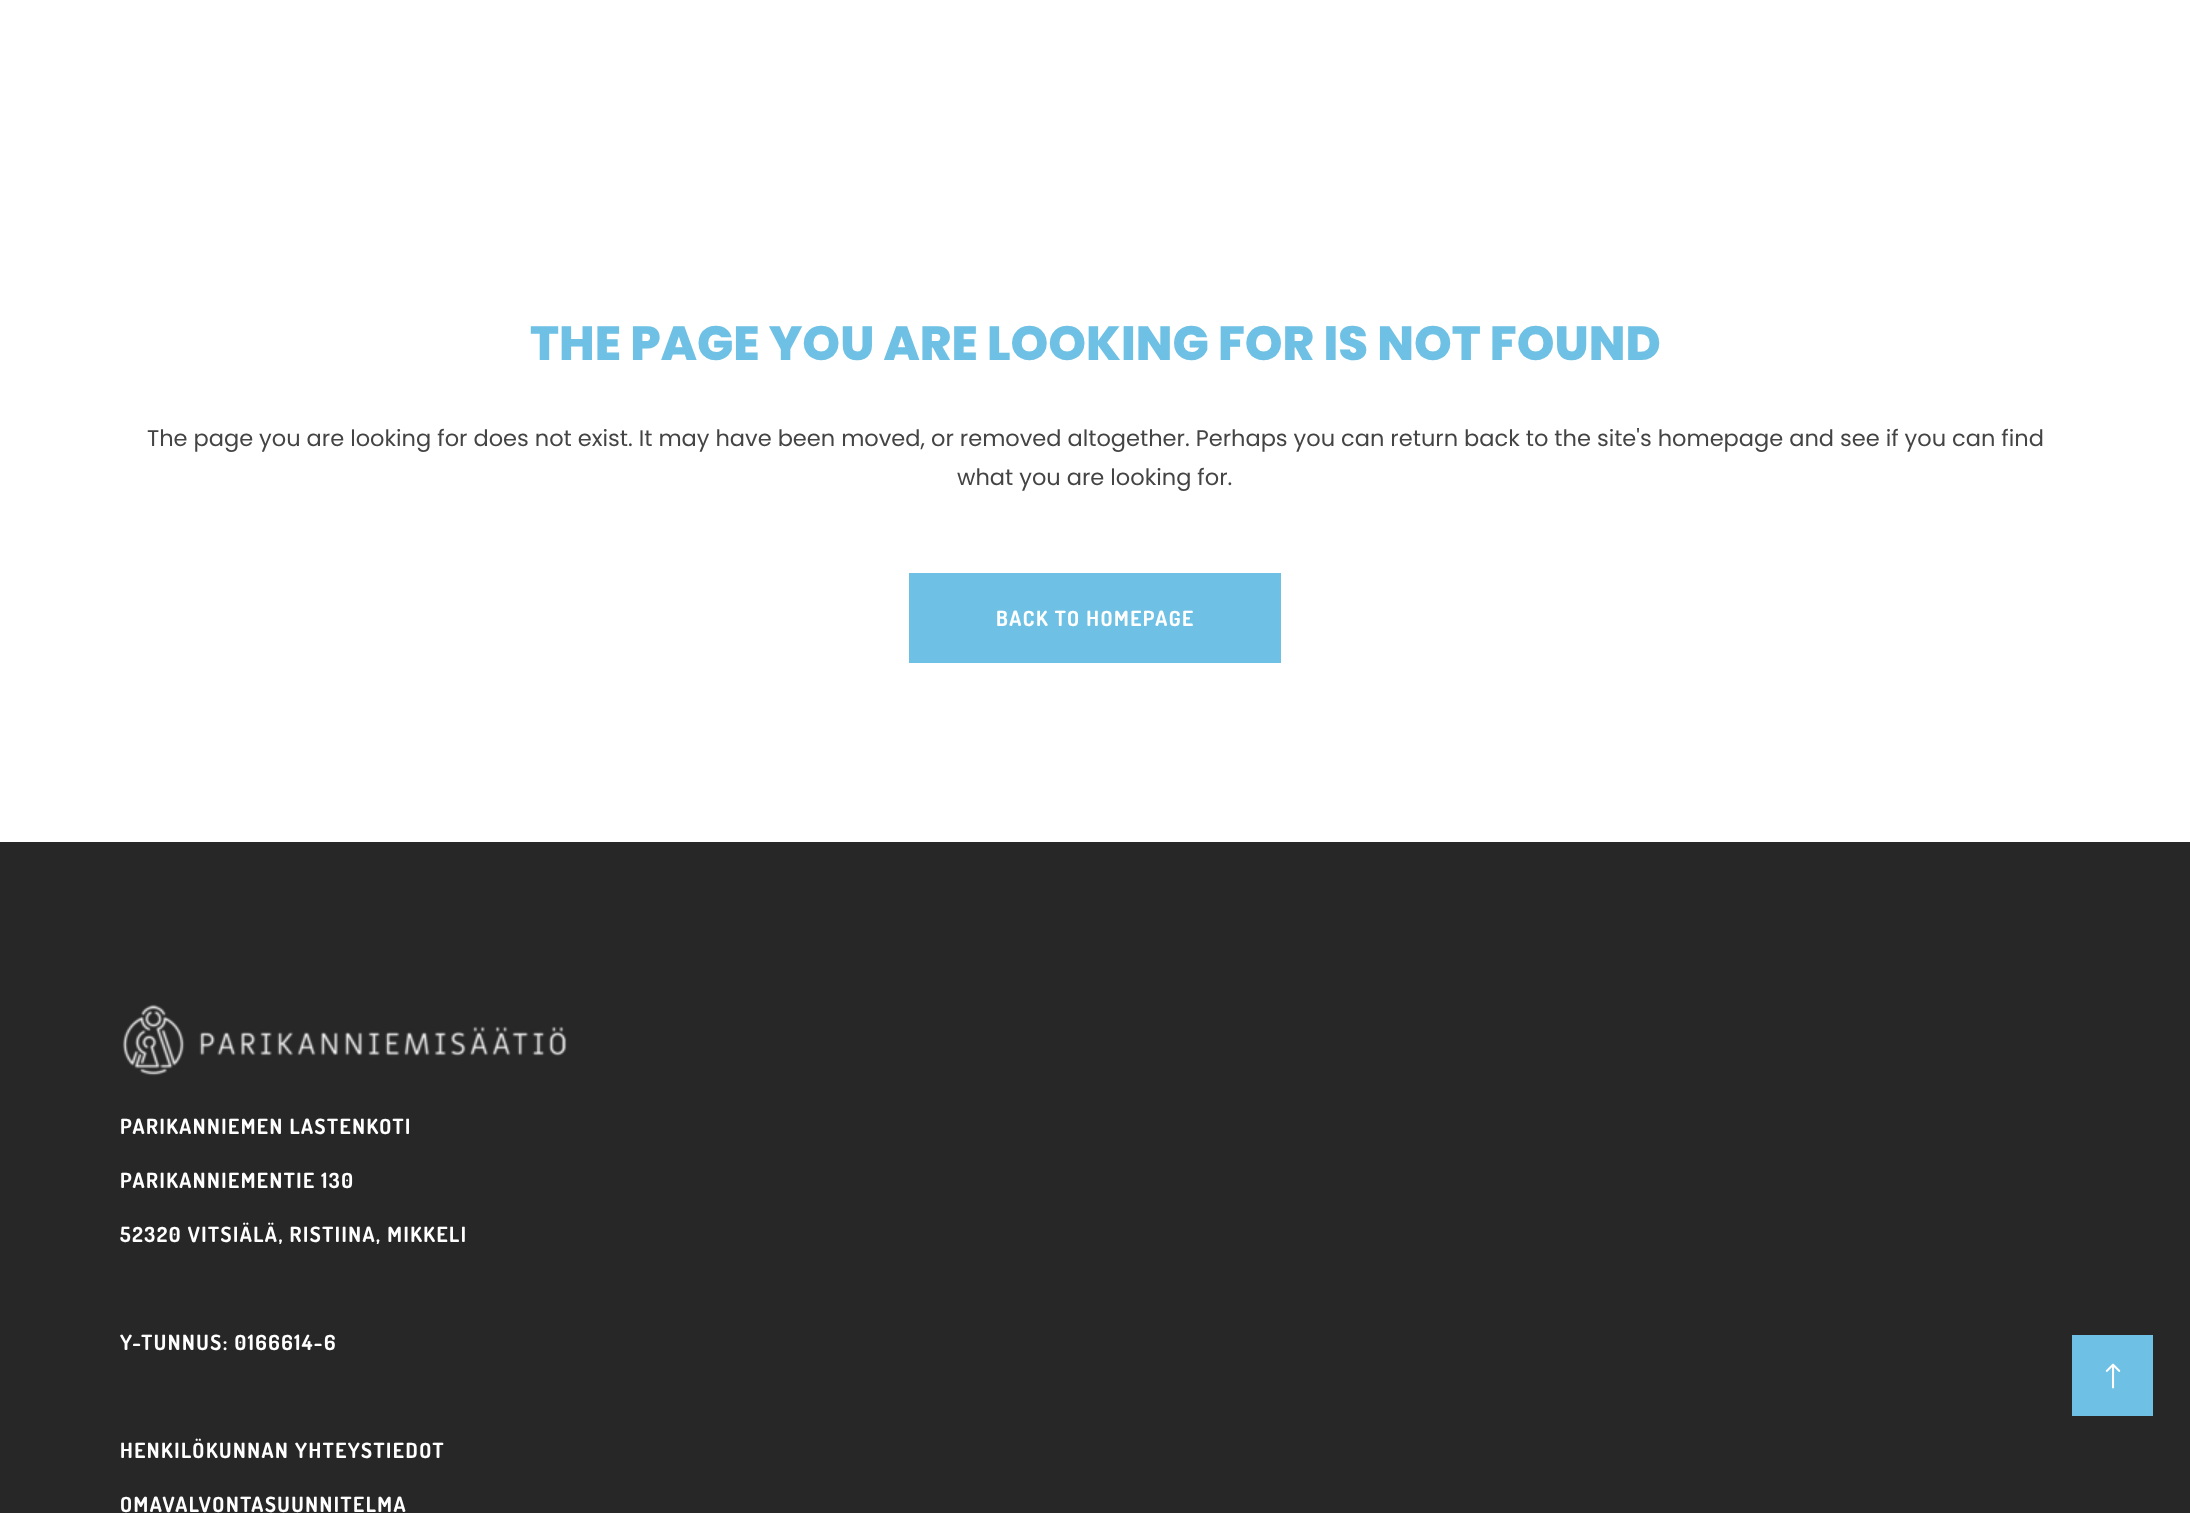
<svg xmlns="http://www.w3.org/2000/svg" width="2190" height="1513">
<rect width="100%" height="100%" fill="#fff"/>
<text x="530" y="360" style="font-family:Poppins;font-size:48px;font-weight:800;fill:#6ec1e4">THE PAGE YOU ARE LOOKING FOR IS NOT FOUND</text>
<text x="147" y="446" style="font-family:Poppins;font-size:22.5px;fill:#444">The page you are looking for does not exist. It may have been moved, or removed altogether. Perhaps you can return back to the site's homepage and see if you can find</text>
<text x="957" y="485" style="font-family:Poppins;font-size:22.5px;fill:#444">what you are looking for.</text>
<rect x="909" y="573" width="372" height="90" fill="#6ec1e4"/>
<text x="996" y="626" style="font-family:Dosis;font-size:21px;font-weight:bold;letter-spacing:1.5px;fill:#fff">BACK TO HOMEPAGE</text>
<rect y="842" width="2190" height="671" fill="#272727"/>
<image x="122" y="1004" width="445" height="72" href="media/1.png"/>
<text x="120" y="1134" style="font-family:Dosis;font-size:21px;font-weight:bold;letter-spacing:1.5px;fill:#fff">PARIKANNIEMEN LASTENKOTI</text>
<text x="120" y="1188" style="font-family:Dosis;font-size:21px;font-weight:bold;letter-spacing:1.5px;fill:#fff">PARIKANNIEMENTIE 130</text>
<text x="120" y="1242" style="font-family:Dosis;font-size:21px;font-weight:bold;letter-spacing:1.5px;fill:#fff">52320 VITSIÄLÄ, RISTIINA, MIKKELI</text>
<text x="120" y="1350" style="font-family:Dosis;font-size:21px;font-weight:bold;letter-spacing:1.5px;fill:#fff">Y-TUNNUS: 0166614-6</text>
<text x="120" y="1458" style="font-family:Dosis;font-size:21px;font-weight:bold;letter-spacing:1.5px;fill:#fff">HENKILÖKUNNAN YHTEYSTIEDOT</text>
<text x="120" y="1512" style="font-family:Dosis;font-size:21px;font-weight:bold;letter-spacing:1.5px;fill:#fff">OMAVALVONTASUUNNITELMA</text>
<rect x="2072" y="1335" width="81" height="81" fill="#6ec1e4"/>
<image x="2105" y="1363" width="16" height="26" href="media/2.png"/>
</svg>
